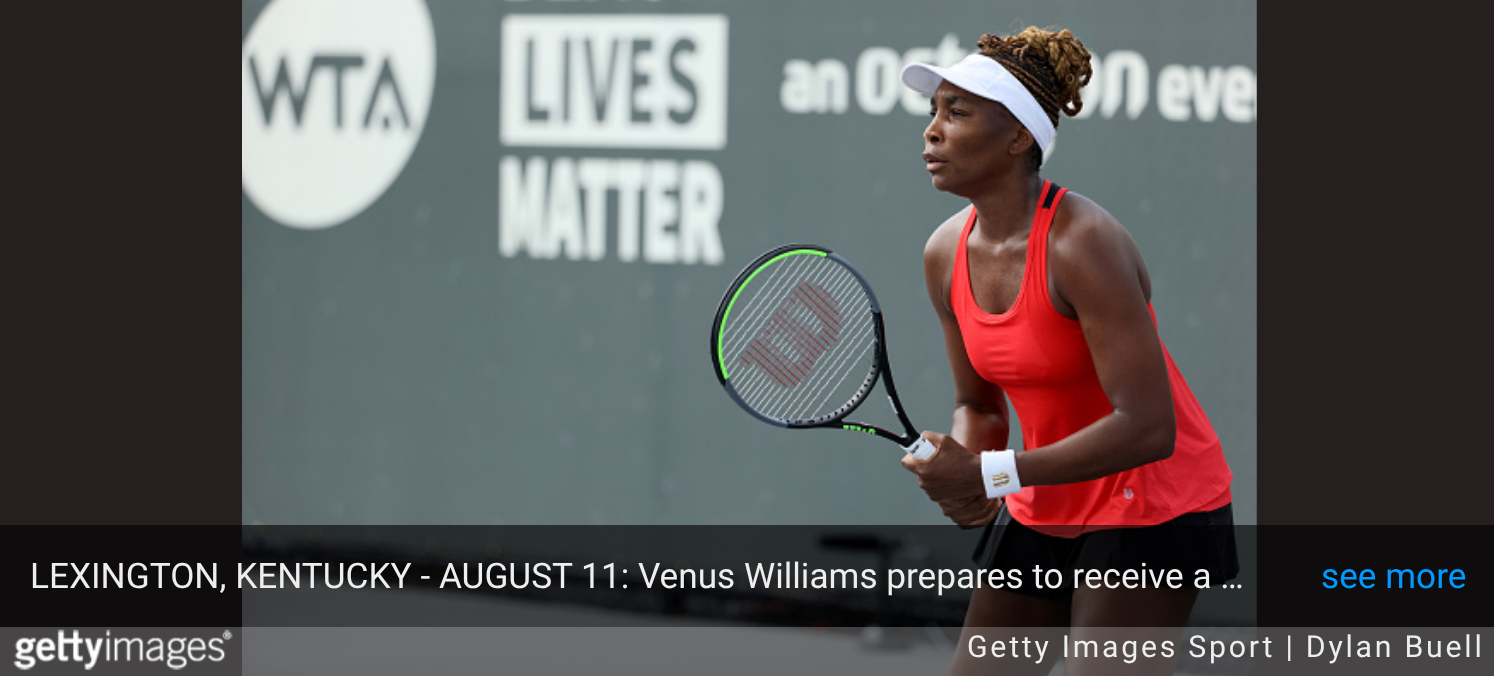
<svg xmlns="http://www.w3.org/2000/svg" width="1494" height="676">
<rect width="100%" height="100%" fill="#251f20"/>
<image x="242" y="0" width="1015" height="676" href="media/1.png"/>
<rect y="525" width="1494" height="102" fill="#00000099"/>
<text x="30" y="588" style="font-family:Roboto;font-size:35.2px;fill:#eee">LEXINGTON, KENTUCKY - AUGUST 11: Venus Williams prepares to receive a …</text>
<text x="1321" y="588" style="font-family:Roboto;font-size:35.2px;fill:#09f">see more</text>
<rect y="627" width="1494" height="49" fill="#555555b3"/>
<image x="13" y="629" width="220" height="42" href="media/2.png"/>
<text x="967" y="657" style="font-family:Roboto;font-size:30.25px;letter-spacing:2.75px;fill:#eee">Getty Images Sport | Dylan Buell</text>
</svg>
